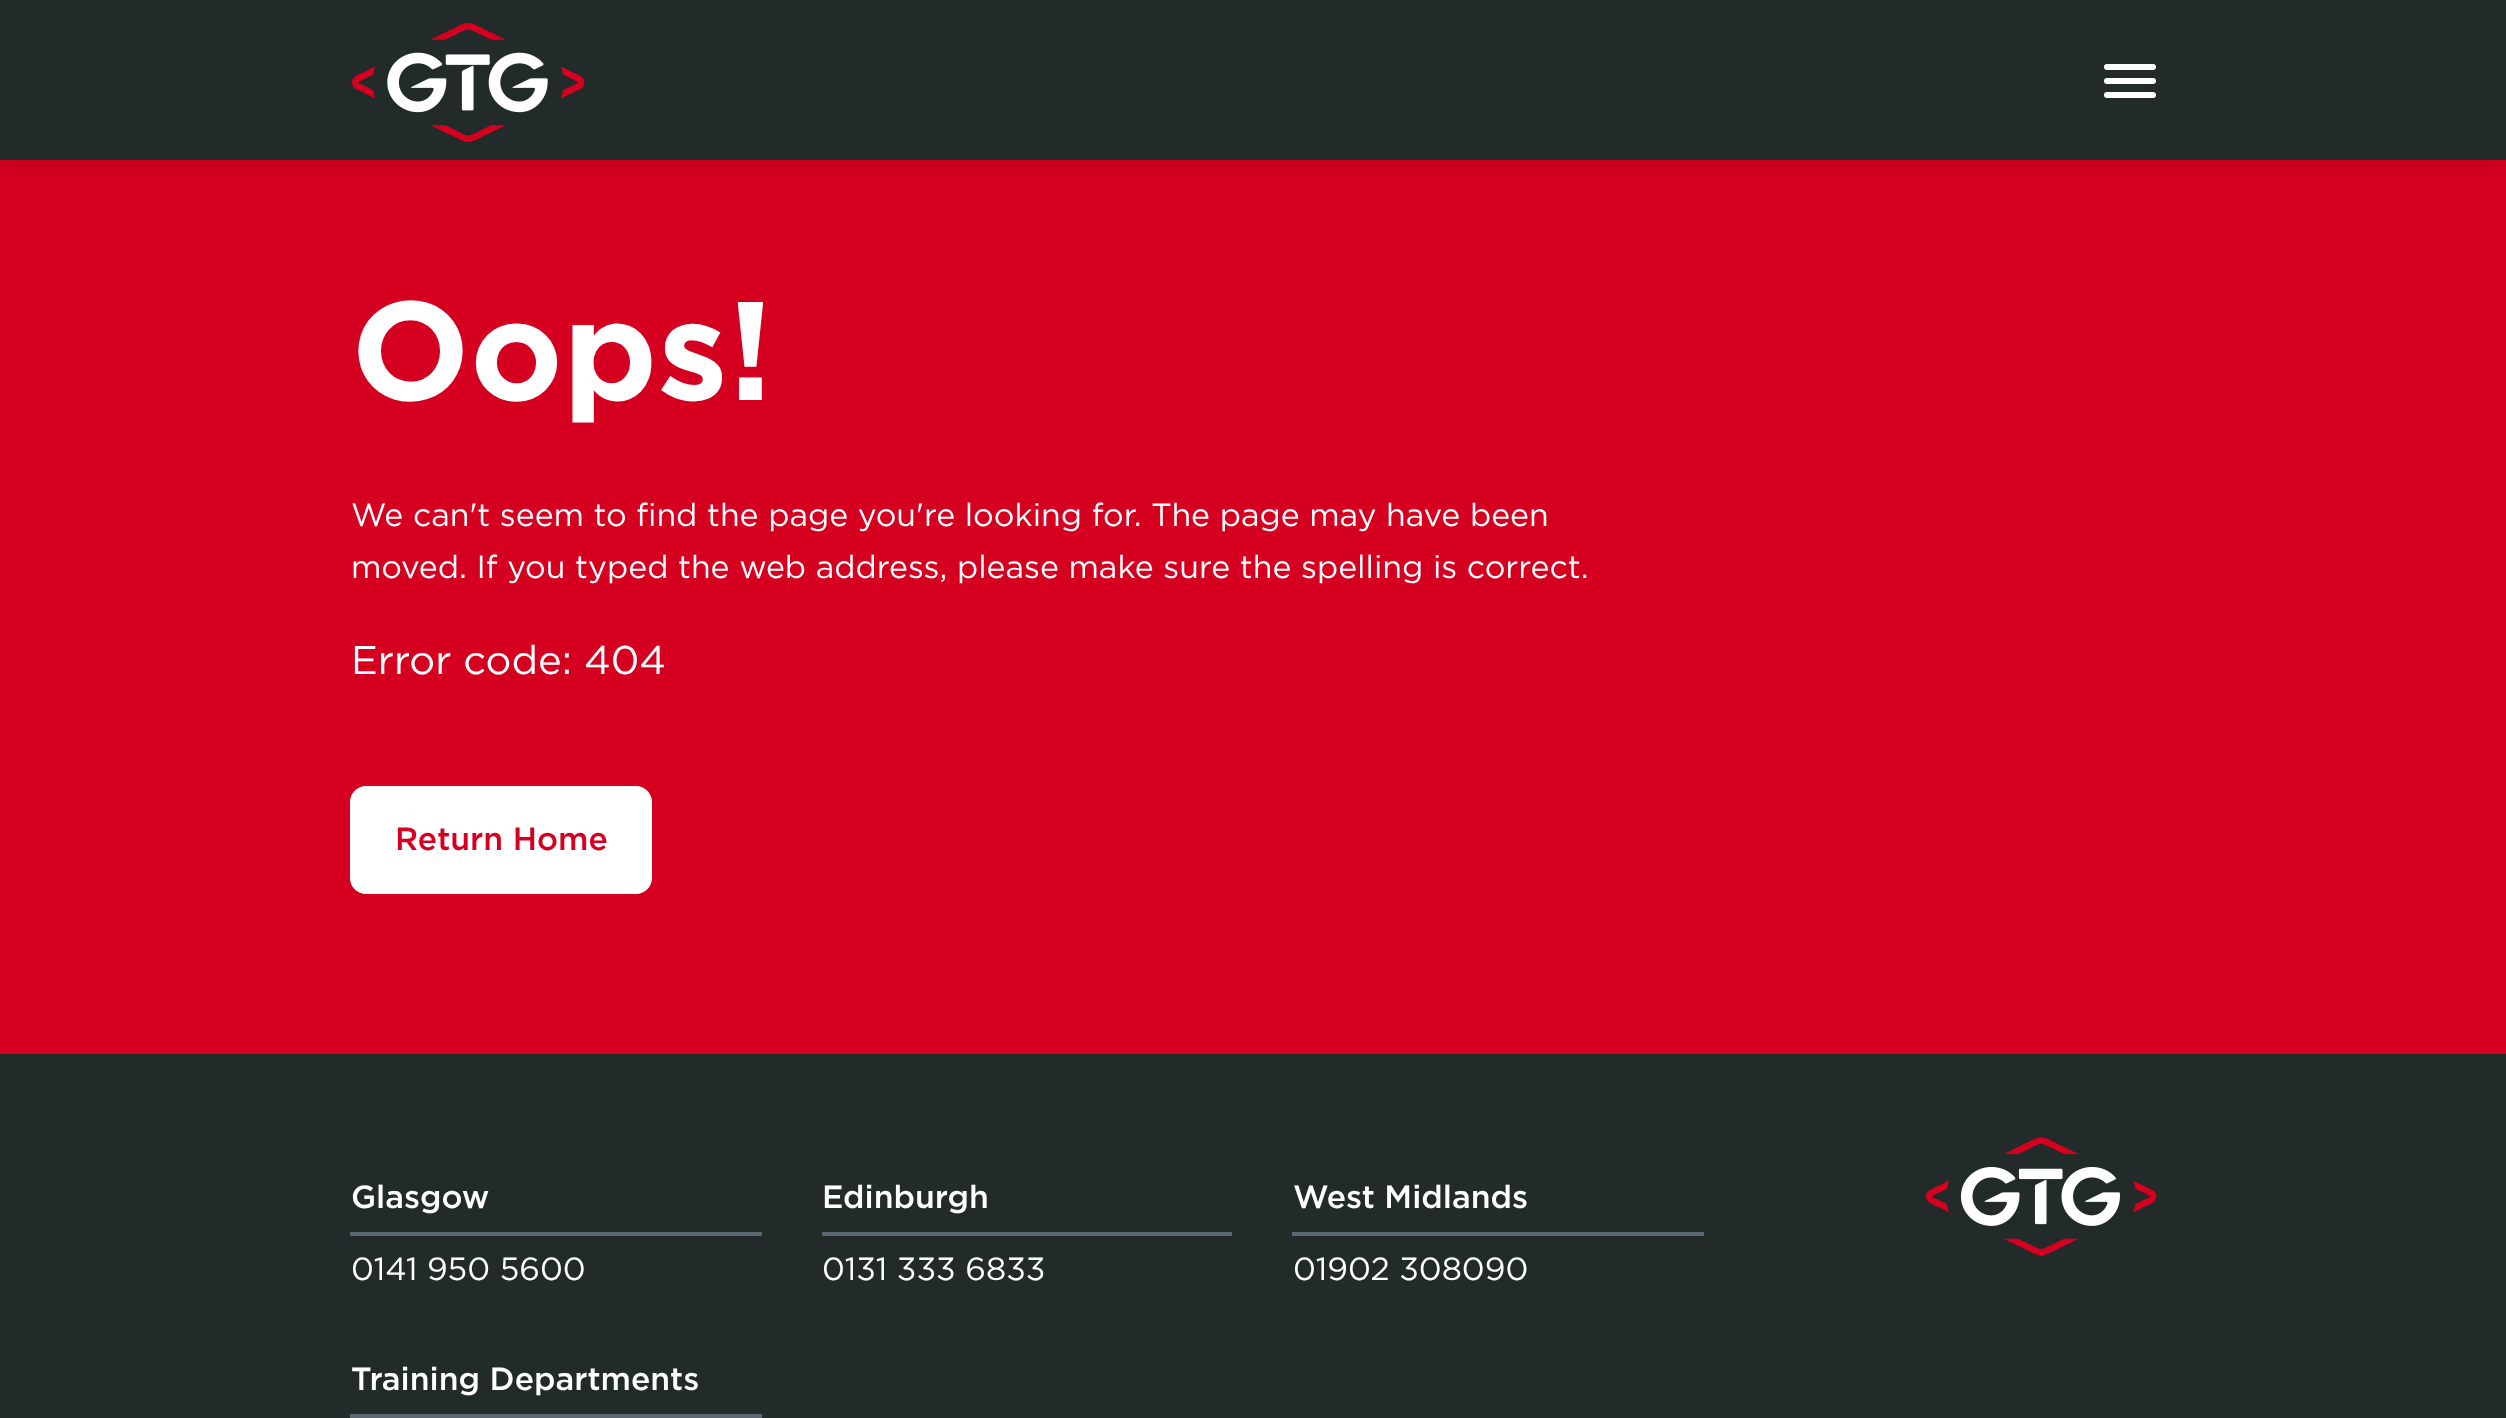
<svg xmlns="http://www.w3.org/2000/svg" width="2506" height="1418">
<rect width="100%" height="100%" fill="#d50020"/>
<rect width="2506" height="160" fill="#00000026" filter="blur(10px)"/>
<rect width="2506" height="160" fill="#222a2a"/>
<image x="352" y="23" width="233" height="119" href="media/1.png"/>
<rect x="2104" y="64" width="52" height="6" rx="3" fill="#fff"/>
<rect x="2104" y="78" width="52" height="6" rx="3" fill="#fff"/>
<rect x="2104" y="92" width="52" height="6" rx="3" fill="#fff"/>
<text x="351" y="400" style="font-family:Gotham;font-size:140px;font-weight:bold;fill:#fff">Oops!</text>
<text x="351" y="526" style="font-family:Gotham;font-size:32px;fill:#fff">We can't seem to find the page you're looking for. The page may have been</text>
<text x="351" y="578" style="font-family:Gotham;font-size:32px;fill:#fff">moved. If you typed the web address, please make sure the spelling is correct.</text>
<text x="351" y="674" style="font-family:Gotham;font-size:40px;fill:#fff">Error code: 404</text>
<rect x="352" y="788" width="298" height="104" rx="14" fill="#fff" stroke="#fff" stroke-width="4"/>
<text x="395" y="850" style="font-family:Gotham;font-size:32px;font-weight:500;fill:#d50020">Return Home</text>
<rect y="1054" width="2506" height="364" fill="#222a2a"/>
<rect x="350" y="1232" width="412" height="4" fill="#5a6770"/>
<text x="351" y="1208" style="font-family:Gotham;font-size:32px;font-weight:500;fill:#fff">Glasgow</text>
<text x="351" y="1280" style="font-family:Gotham;font-size:32px;fill:#fff">0141 950 5600</text>
<rect x="822" y="1232" width="410" height="4" fill="#5a6770"/>
<text x="822" y="1208" style="font-family:Gotham;font-size:32px;font-weight:500;fill:#fff">Edinburgh</text>
<text x="822" y="1280" style="font-family:Gotham;font-size:32px;fill:#fff">0131 333 6833</text>
<rect x="1292" y="1232" width="412" height="4" fill="#5a6770"/>
<text x="1293" y="1208" style="font-family:Gotham;font-size:32px;font-weight:500;fill:#fff">West Midlands</text>
<text x="1293" y="1280" style="font-family:Gotham;font-size:32px;fill:#fff">01902 308090</text>
<rect x="350" y="1414" width="412" height="4" fill="#5a6770"/>
<text x="351" y="1390" style="font-family:Gotham;font-size:32px;font-weight:500;fill:#fff">Training Departments</text>
<image x="1926" y="1137" width="231" height="119" href="media/2.png"/>
</svg>
